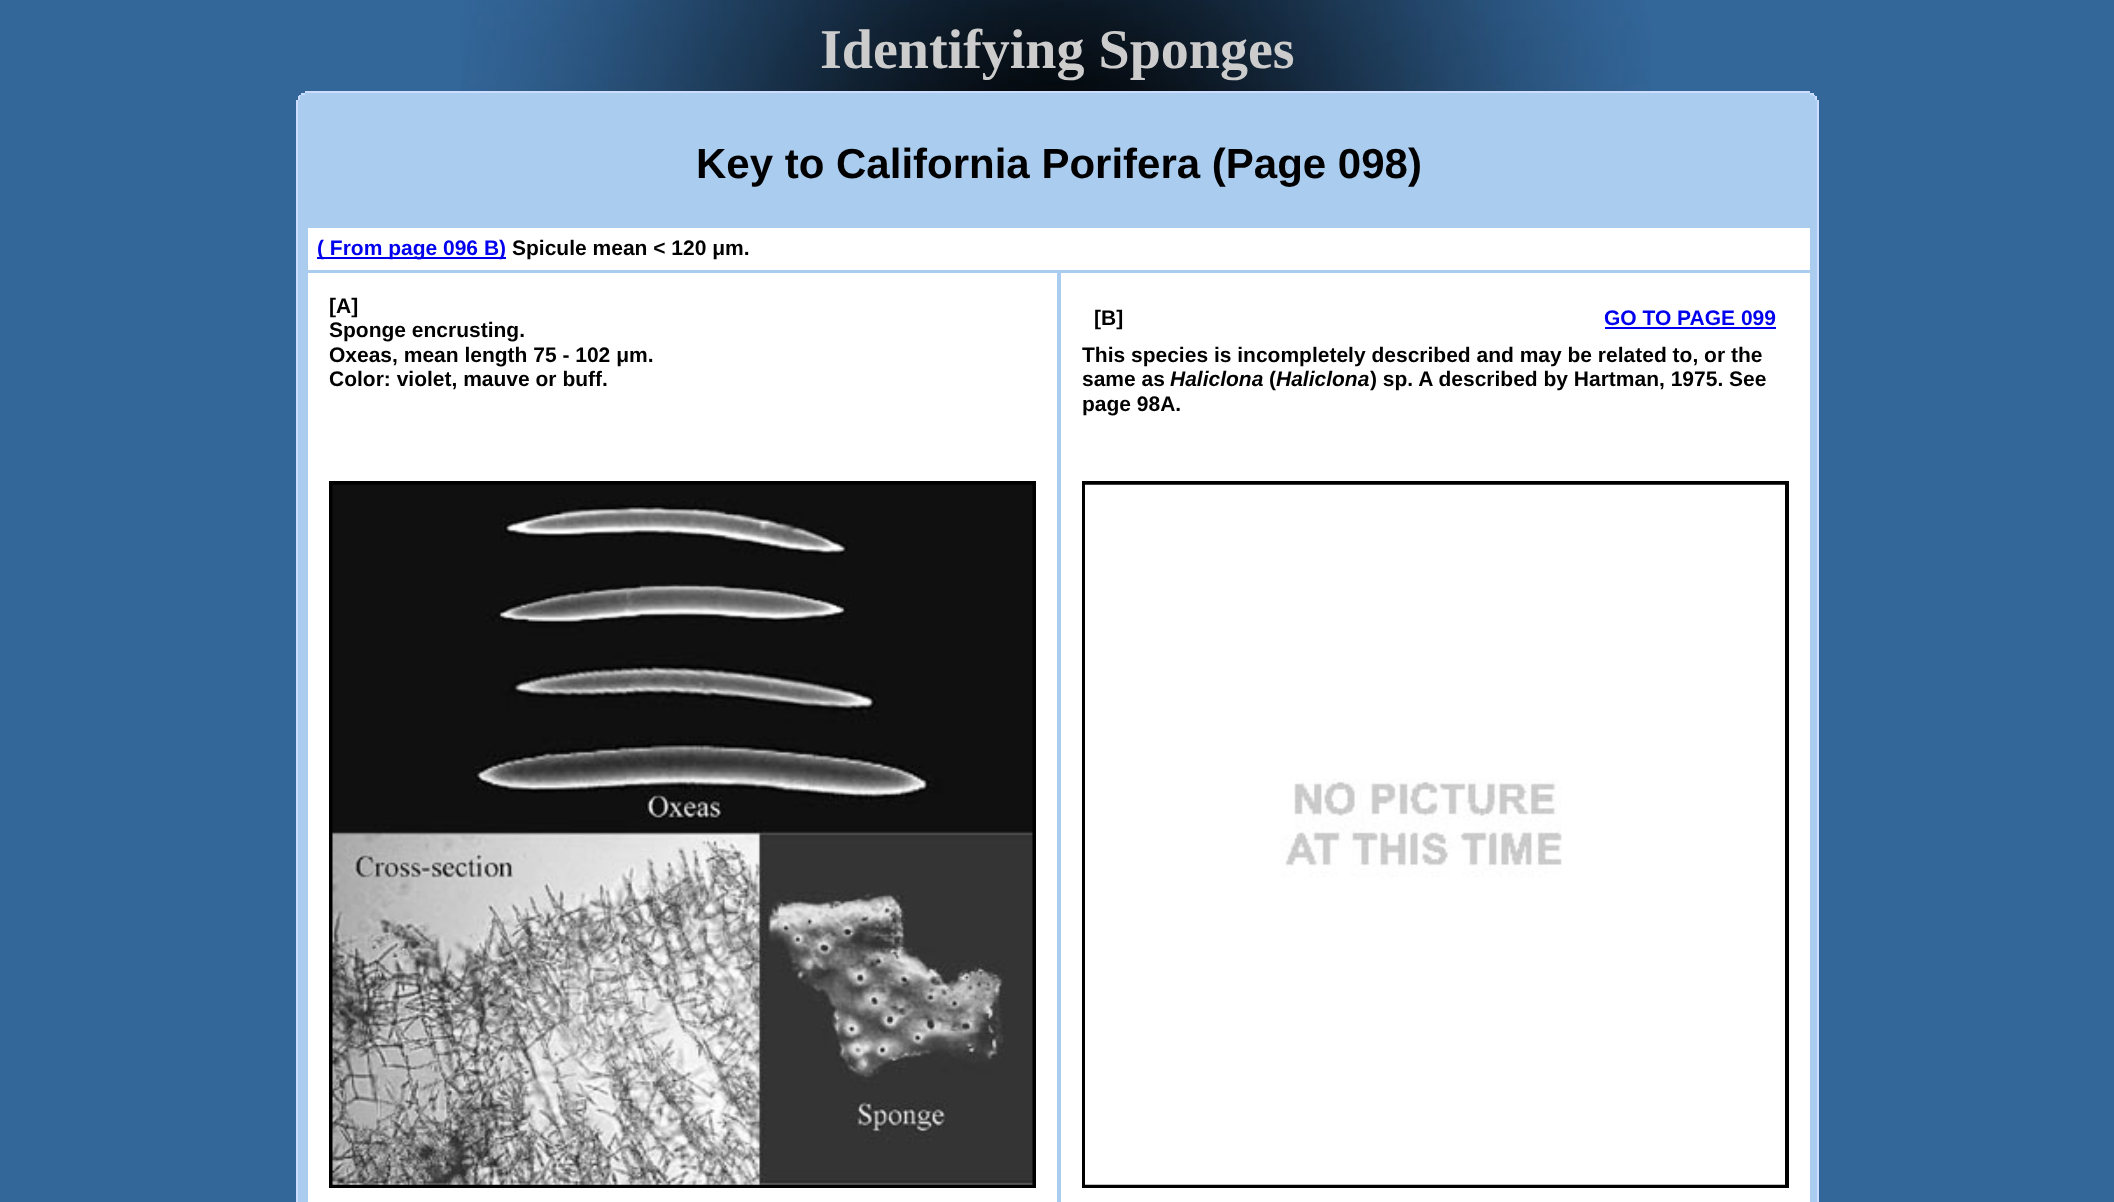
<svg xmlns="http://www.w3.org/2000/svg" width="2114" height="1202">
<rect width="100%" height="100%" fill="#369"/>
<image x="461" y="0" width="1190" height="91" href="media/1.png"/>
<text x="820" y="68" style="font-family:Liberation Serif;font-size:56px;font-weight:bold;fill:#ccc">Identifying Sponges</text>
<rect x="305" y="91" width="1505" height="2" fill="#cdf"/>
<rect x="301" y="93" width="1512" height="2" fill="#ace"/>
<rect x="1810" y="93" width="4" height="2" fill="#cdf"/>
<rect x="301" y="93" width="4" height="2" fill="#cdf"/>
<rect x="299" y="95" width="1516" height="1" fill="#ace"/>
<rect x="1813" y="95" width="2" height="1" fill="#cdf"/>
<rect x="299" y="95" width="2" height="1" fill="#cdf"/>
<rect x="298" y="96" width="1519" height="1106" fill="#ace"/>
<rect x="1815" y="96" width="2" height="4" fill="#cdf"/>
<rect x="298" y="96" width="2" height="4" fill="#cdf"/>
<rect x="1817" y="100" width="2" height="1102" fill="#cdf"/>
<rect x="296" y="100" width="2" height="1102" fill="#cdf"/>
<text x="696" y="178" style="font-family:Liberation Sans;font-size:42px;font-weight:bold;fill:#000">Key to California Porifera (Page 098)</text>
<rect x="308" y="228" width="1502" height="42" fill="#fff"/>
<rect x="317" y="257" width="189" height="2" fill="#00e"/>
<text x="317" y="255" style="font-family:Liberation Sans;font-size:21px;font-weight:bold;fill:#00e">( From page 096 B)</text>
<text x="512" y="255" style="font-family:Liberation Sans;font-size:21px;font-weight:bold;fill:#000">Spicule mean &lt; 120 μm.</text>
<rect x="308" y="273" width="749" height="929" fill="#fff"/>
<text x="329" y="313" style="font-family:Liberation Sans;font-size:21px;font-weight:bold;fill:#000">[A]</text>
<text x="329" y="337" style="font-family:Liberation Sans;font-size:21px;font-weight:bold;fill:#000">Sponge encrusting.</text>
<text x="329" y="362" style="font-family:Liberation Sans;font-size:21px;font-weight:bold;fill:#000">Oxeas, mean length 75 - 102 μm.</text>
<text x="329" y="386" style="font-family:Liberation Sans;font-size:21px;font-weight:bold;fill:#000">Color: violet, mauve or buff.</text>
<rect x="331" y="483" width="703" height="703" fill="none" stroke="#000" stroke-width="4"/>
<image x="332" y="484" width="701" height="701" href="media/2.png"/>
<rect x="1061" y="273" width="749" height="929" fill="#fff"/>
<text x="1094" y="325" style="font-family:Liberation Sans;font-size:21px;font-weight:bold;fill:#000">[B]</text>
<text x="1604" y="325" style="font-family:Liberation Sans;font-size:21px;font-weight:bold;fill:#00e">GO TO PAGE 099</text>
<rect x="1605" y="327" width="171" height="2" fill="#00e"/>
<text x="1082" y="362" style="font-family:Liberation Sans;font-size:21px;font-weight:bold;fill:#000">This species is incompletely described and may be related to, or the</text>
<text x="1082" y="386" style="font-family:Liberation Sans;font-size:21px;font-weight:bold;fill:#000">same as</text>
<text x="1170" y="386" style="font-family:Liberation Sans;font-size:21px;font-weight:bold;font-style:italic;fill:#000">Haliclona</text>
<text x="1269" y="386" style="font-family:Liberation Sans;font-size:21px;font-weight:bold;fill:#000">(</text>
<text x="1276" y="386" style="font-family:Liberation Sans;font-size:21px;font-weight:bold;font-style:italic;fill:#000">Haliclona</text>
<text x="1370" y="386" style="font-family:Liberation Sans;font-size:21px;font-weight:bold;fill:#000">) sp. A described by Hartman, 1975. See</text>
<text x="1082" y="411" style="font-family:Liberation Sans;font-size:21px;font-weight:bold;fill:#000">page 98A.</text>
<rect x="1084" y="483" width="703" height="703" fill="none" stroke="#000" stroke-width="4"/>
<image x="1085" y="484" width="700" height="701" href="media/3.png"/>
</svg>
